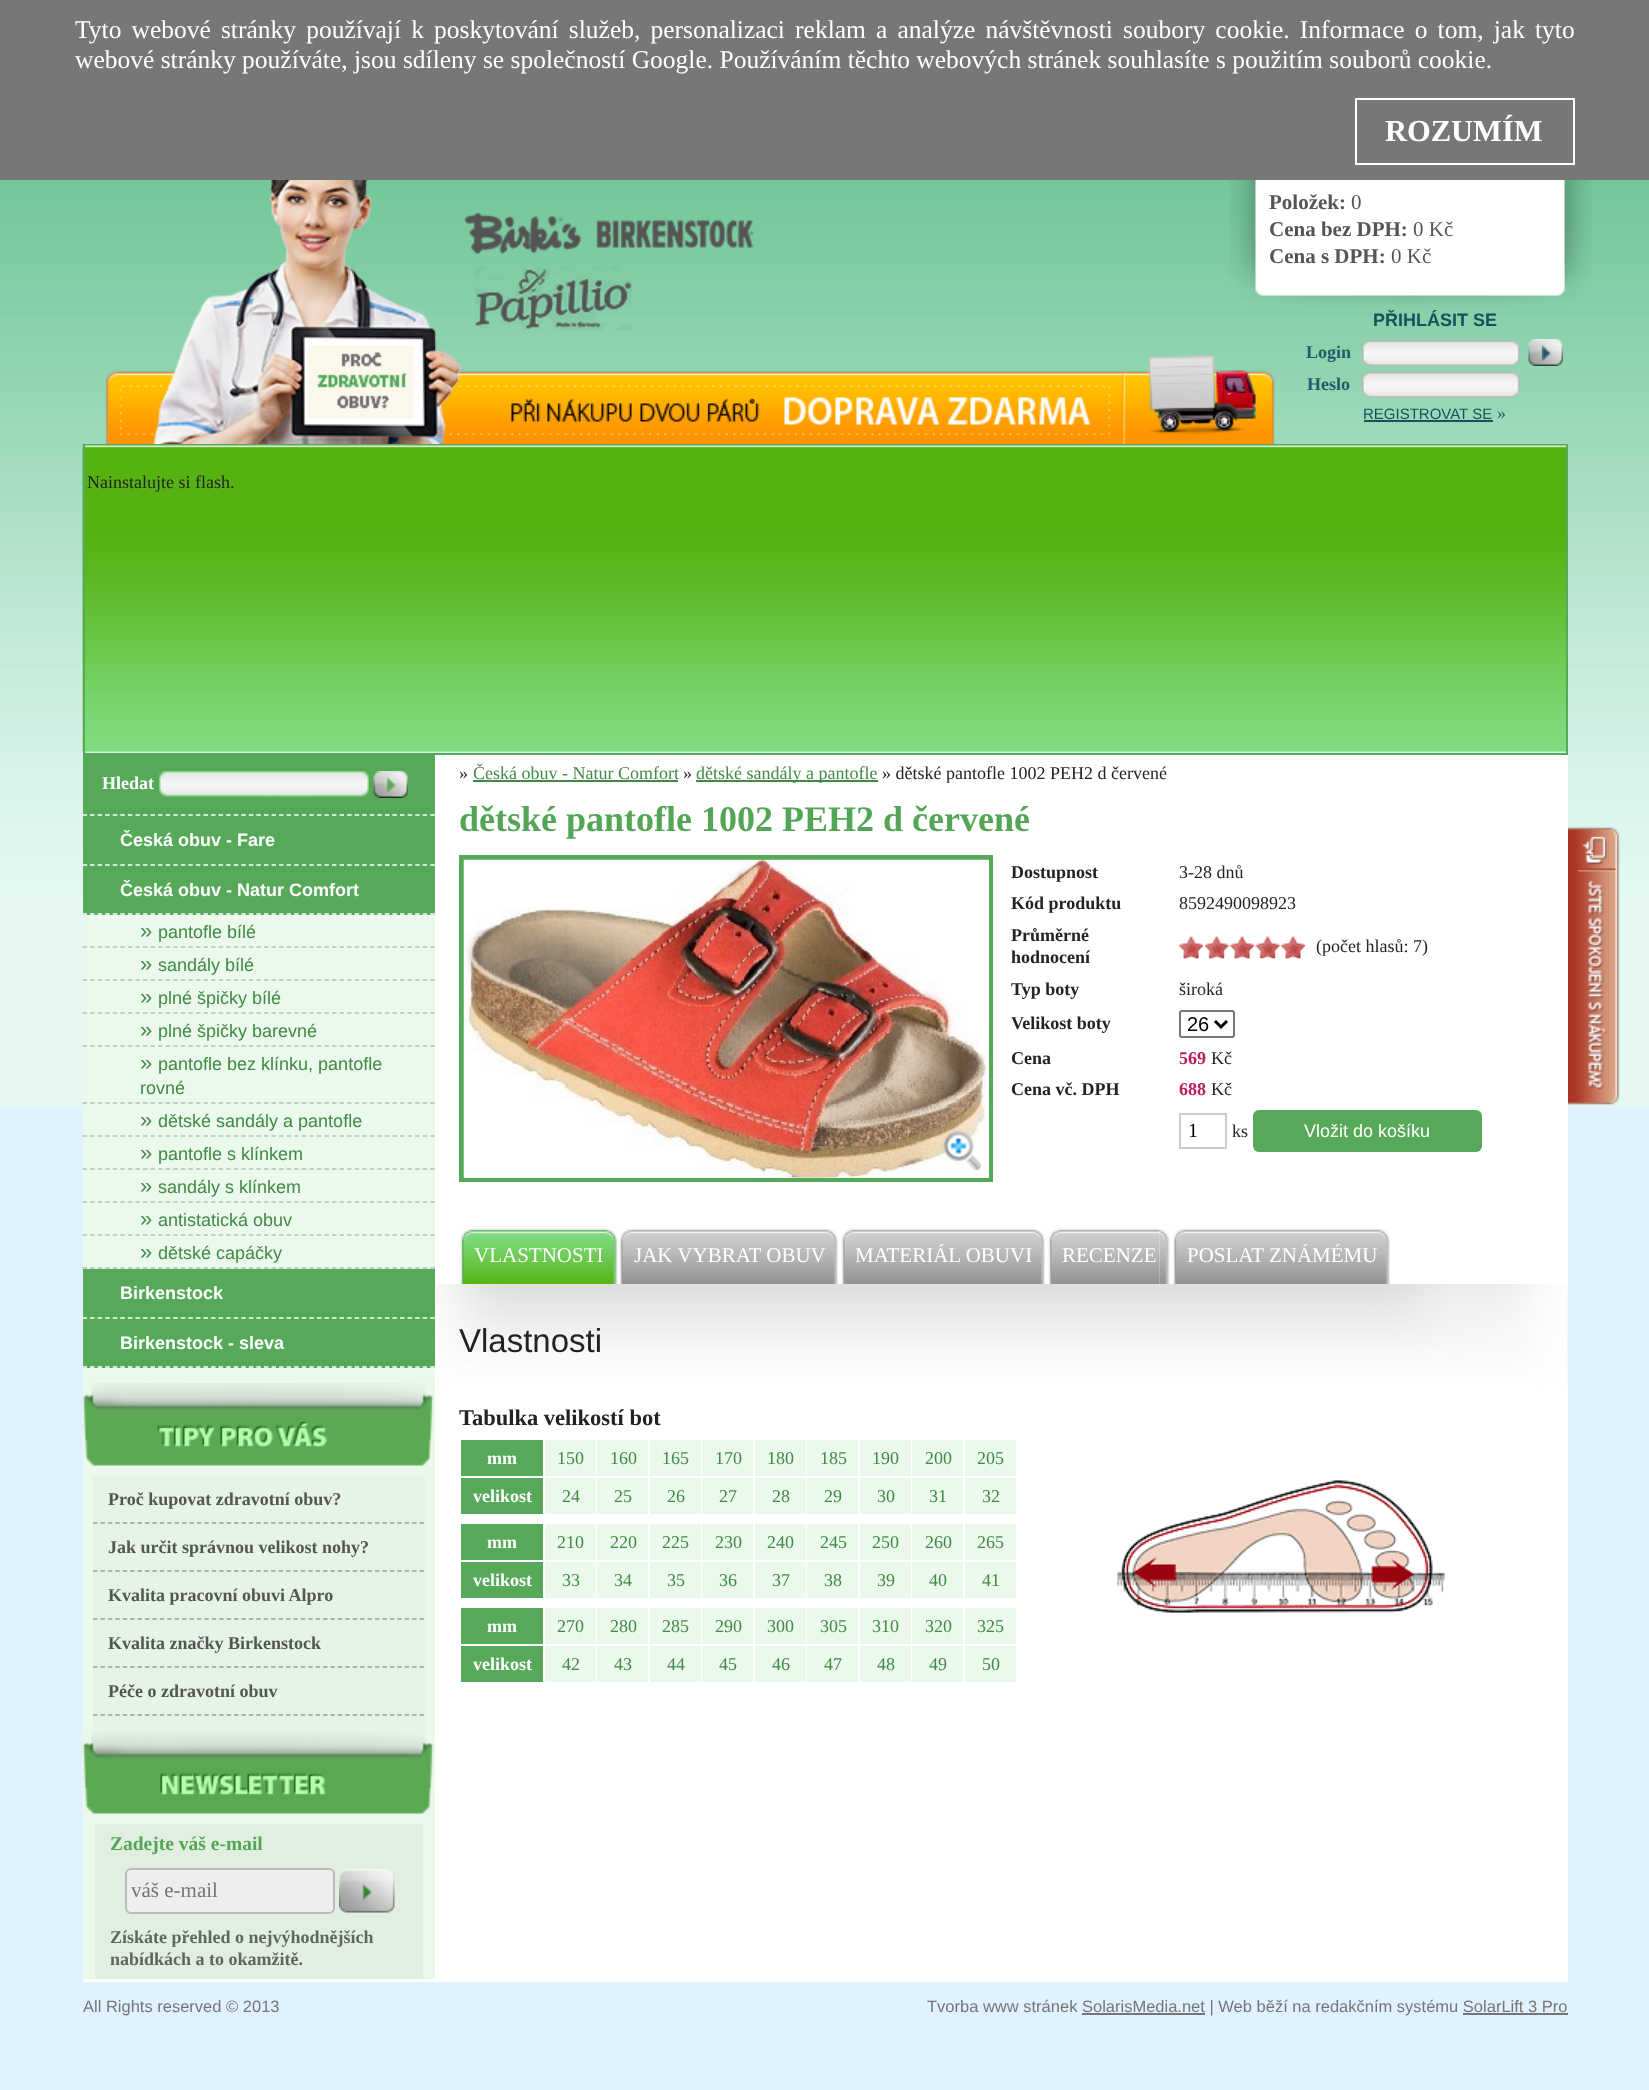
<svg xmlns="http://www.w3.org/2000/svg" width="1649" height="2090">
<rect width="100%" height="100%" fill="#e0f2ff"/>
<image x="0" y="180" width="1649" height="927" href="media/1.png"/>
<rect width="1649" height="180" fill="#777"/>
<text x="75" y="38" word-spacing="3.75" style="font-family:Liberation Serif;font-size:25.5px;fill:#fff">Tyto webové stránky používají k poskytování služeb, personalizaci reklam a analýze návštěvnosti soubory cookie. Informace o tom, jak tyto</text>
<text x="75" y="68" style="font-family:Liberation Serif;font-size:25.5px;fill:#fff">webové stránky používáte, jsou sdíleny se společností Google. Používáním těchto webových stránek souhlasíte s použitím souborů cookie.</text>
<rect x="1356" y="99" width="218" height="65" fill="none" stroke="#fff" stroke-width="2"/>
<text x="1385" y="141" style="font-family:Liberation Serif;font-size:30.5px;font-weight:bold;fill:#fff">ROZUMÍM</text>
<image x="105" y="180" width="1170" height="264" href="media/2.png"/>
<image x="1229" y="180" width="363" height="125" href="media/3.png"/>
<text x="1269" y="209" style="font-family:Liberation Serif;font-size:21px;font-weight:bold;fill:#555">Položek:</text>
<text x="1351" y="209" style="font-family:Liberation Serif;font-size:21px;fill:#555">0</text>
<text x="1269" y="236" style="font-family:Liberation Serif;font-size:21px;font-weight:bold;fill:#555">Cena bez DPH:</text>
<text x="1413" y="236" style="font-family:Liberation Serif;font-size:21px;fill:#555">0 Kč</text>
<text x="1269" y="263" style="font-family:Liberation Serif;font-size:21px;font-weight:bold;fill:#555">Cena s DPH:</text>
<text x="1391" y="263" style="font-family:Liberation Serif;font-size:21px;fill:#555">0 Kč</text>
<text x="1373" y="326" style="font-family:Liberation Sans;font-size:18px;font-weight:bold;fill:#19505c">PŘIHLÁSIT SE</text>
<text x="1306" y="358" style="font-family:Liberation Serif;font-size:18px;font-weight:bold;fill:#225b67">Login</text>
<image x="1362" y="340" width="158" height="26" href="media/4.png"/>
<image x="1528" y="339" width="35" height="27" href="media/5.png"/>
<text x="1307" y="390" style="font-family:Liberation Serif;font-size:18px;font-weight:bold;fill:#225b67">Heslo</text>
<image x="1362" y="372" width="158" height="26" href="media/6.png"/>
<text x="1363" y="419" style="font-family:Liberation Sans;font-size:15px;fill:#19505c">REGISTROVAT SE</text>
<rect x="1364" y="420" width="129" height="2" fill="#19505c"/>
<text x="1497" y="419" style="font-family:Liberation Serif;font-size:18px;fill:#225b67">»</text>
<image x="82" y="444" width="1484" height="308" href="media/7.png"/>
<rect x="1566" y="444" width="2" height="311" fill="#56a959"/>
<rect x="83" y="753" width="1485" height="2" fill="#56a959"/>
<rect x="83" y="444" width="2" height="311" fill="#56a959"/>
<text x="87" y="488" style="font-family:Liberation Serif;font-size:18px;fill:#232323">Nainstalujte si flash.</text>
<rect x="83" y="755" width="1485" height="1227" fill="#fff"/>
<rect x="83" y="915" width="352" height="1064" fill="#eaf9eb"/>
<rect x="83" y="755" width="352" height="160" fill="#56a959"/>
<path d="M82.5 815h352.5" fill="none" stroke="#fff" stroke-width="1.5" stroke-dasharray="4.5 3.06"/>
<text x="102" y="789" style="font-family:Liberation Serif;font-size:18px;font-weight:bold;fill:#fff">Hledat</text>
<image x="159" y="771" width="210" height="26" href="media/8.png"/>
<image x="373" y="771" width="35" height="27" href="media/9.png"/>
<path d="M82.5 865h352.5" fill="none" stroke="#fff" stroke-width="1.5" stroke-dasharray="4.5 3.06"/>
<text x="120" y="846" style="font-family:Liberation Sans;font-size:18px;font-weight:bold;fill:#fff">Česká obuv - Fare</text>
<path d="M82.5 914h352.5" fill="none" stroke="#fff" stroke-width="1.5" stroke-dasharray="4.5 3.06"/>
<text x="120" y="896" style="font-family:Liberation Sans;font-size:18px;font-weight:bold;fill:#fff">Česká obuv - Natur Comfort</text>
<path d="M82.5 947h352.5" fill="none" stroke="#bcbcbc" stroke-width="1.5" stroke-dasharray="4.5 3.06"/>
<text x="140" y="938" style="font-family:Liberation Sans;font-size:22px;fill:#418944">»</text>
<text x="158" y="938" style="font-family:Liberation Sans;font-size:18px;fill:#418944">pantofle bílé</text>
<path d="M82.5 980h352.5" fill="none" stroke="#bcbcbc" stroke-width="1.5" stroke-dasharray="4.5 3.06"/>
<text x="140" y="971" style="font-family:Liberation Sans;font-size:22px;fill:#418944">»</text>
<text x="158" y="971" style="font-family:Liberation Sans;font-size:18px;fill:#418944">sandály bílé</text>
<path d="M82.5 1013h352.5" fill="none" stroke="#bcbcbc" stroke-width="1.5" stroke-dasharray="4.5 3.06"/>
<text x="140" y="1004" style="font-family:Liberation Sans;font-size:22px;fill:#418944">»</text>
<text x="158" y="1004" style="font-family:Liberation Sans;font-size:18px;fill:#418944">plné špičky bílé</text>
<path d="M82.5 1046h352.5" fill="none" stroke="#bcbcbc" stroke-width="1.5" stroke-dasharray="4.5 3.06"/>
<text x="140" y="1037" style="font-family:Liberation Sans;font-size:22px;fill:#418944">»</text>
<text x="158" y="1037" style="font-family:Liberation Sans;font-size:18px;fill:#418944">plné špičky barevné</text>
<path d="M82.5 1103h352.5" fill="none" stroke="#bcbcbc" stroke-width="1.5" stroke-dasharray="4.5 3.06"/>
<text x="140" y="1070" style="font-family:Liberation Sans;font-size:22px;fill:#418944">»</text>
<text x="158" y="1070" style="font-family:Liberation Sans;font-size:18px;fill:#418944">pantofle bez klínku, pantofle</text>
<text x="140" y="1094" style="font-family:Liberation Sans;font-size:18px;fill:#418944">rovné</text>
<path d="M82.5 1136h352.5" fill="none" stroke="#bcbcbc" stroke-width="1.5" stroke-dasharray="4.5 3.06"/>
<text x="140" y="1127" style="font-family:Liberation Sans;font-size:22px;fill:#418944">»</text>
<text x="158" y="1127" style="font-family:Liberation Sans;font-size:18px;fill:#418944">dětské sandály a pantofle</text>
<path d="M82.5 1169h352.5" fill="none" stroke="#bcbcbc" stroke-width="1.5" stroke-dasharray="4.5 3.06"/>
<text x="140" y="1160" style="font-family:Liberation Sans;font-size:22px;fill:#418944">»</text>
<text x="158" y="1160" style="font-family:Liberation Sans;font-size:18px;fill:#418944">pantofle s klínkem</text>
<path d="M82.5 1202h352.5" fill="none" stroke="#bcbcbc" stroke-width="1.5" stroke-dasharray="4.5 3.06"/>
<text x="140" y="1193" style="font-family:Liberation Sans;font-size:22px;fill:#418944">»</text>
<text x="158" y="1193" style="font-family:Liberation Sans;font-size:18px;fill:#418944">sandály s klínkem</text>
<path d="M82.5 1235h352.5" fill="none" stroke="#bcbcbc" stroke-width="1.5" stroke-dasharray="4.5 3.06"/>
<text x="140" y="1226" style="font-family:Liberation Sans;font-size:22px;fill:#418944">»</text>
<text x="158" y="1226" style="font-family:Liberation Sans;font-size:18px;fill:#418944">antistatická obuv</text>
<path d="M82.5 1268h352.5" fill="none" stroke="#bcbcbc" stroke-width="1.5" stroke-dasharray="4.5 3.06"/>
<text x="140" y="1259" style="font-family:Liberation Sans;font-size:22px;fill:#418944">»</text>
<text x="158" y="1259" style="font-family:Liberation Sans;font-size:18px;fill:#418944">dětské capáčky</text>
<rect x="83" y="1269" width="352" height="99" fill="#56a959"/>
<path d="M82.5 1318h352.5" fill="none" stroke="#fff" stroke-width="1.5" stroke-dasharray="4.5 3.06"/>
<text x="120" y="1299" style="font-family:Liberation Sans;font-size:18px;font-weight:bold;fill:#fff">Birkenstock</text>
<path d="M82.5 1367h352.5" fill="none" stroke="#fff" stroke-width="1.5" stroke-dasharray="4.5 3.06"/>
<text x="120" y="1349" style="font-family:Liberation Sans;font-size:18px;font-weight:bold;fill:#fff">Birkenstock - sleva</text>
<image x="82" y="1383" width="352" height="83" href="media/10.png"/>
<rect x="93" y="1476" width="332" height="255" fill="#e5f4e6"/>
<path d="M93 1523h331.5" fill="none" stroke="#999" stroke-width="1.5" stroke-dasharray="4.5 2.92"/>
<text x="108" y="1505" style="font-family:Liberation Serif;font-size:18px;font-weight:bold;fill:#555">Proč kupovat zdravotní obuv?</text>
<path d="M93 1571h331.5" fill="none" stroke="#999" stroke-width="1.5" stroke-dasharray="4.5 2.92"/>
<text x="108" y="1553" style="font-family:Liberation Serif;font-size:18px;font-weight:bold;fill:#555">Jak určit správnou velikost nohy?</text>
<path d="M93 1619h331.5" fill="none" stroke="#999" stroke-width="1.5" stroke-dasharray="4.5 2.92"/>
<text x="108" y="1601" style="font-family:Liberation Serif;font-size:18px;font-weight:bold;fill:#555">Kvalita pracovní obuvi Alpro</text>
<path d="M93 1667h331.5" fill="none" stroke="#999" stroke-width="1.5" stroke-dasharray="4.5 2.92"/>
<text x="108" y="1649" style="font-family:Liberation Serif;font-size:18px;font-weight:bold;fill:#555">Kvalita značky Birkenstock</text>
<path d="M93 1715h331.5" fill="none" stroke="#999" stroke-width="1.5" stroke-dasharray="4.5 2.92"/>
<text x="108" y="1697" style="font-family:Liberation Serif;font-size:18px;font-weight:bold;fill:#555">Péče o zdravotní obuv</text>
<image x="82" y="1731" width="352" height="83" href="media/11.png"/>
<rect x="95" y="1824" width="328" height="155" fill="#e1efe1"/>
<text x="110" y="1850" style="font-family:Liberation Serif;font-size:19.5px;font-weight:bold;fill:#54a657">Zadejte váš e-mail</text>
<rect x="126" y="1869" width="208" height="44" rx="5" fill="#eee" stroke="#bbb" stroke-width="2"/>
<text x="131" y="1897" style="font-family:Liberation Serif;font-size:21px;fill:#777476">váš e-mail</text>
<image x="339" y="1869" width="56" height="44" href="media/12.png"/>
<text x="110" y="1943" style="font-family:Liberation Serif;font-size:18px;font-weight:bold;fill:#636563">Získáte přehled o nejvýhodnějších</text>
<text x="110" y="1965" style="font-family:Liberation Serif;font-size:18px;font-weight:bold;fill:#636563">nabídkách a to okamžitě.</text>
<text x="459" y="779" style="font-family:Liberation Serif;font-size:18px;fill:#232323">»</text>
<text x="473" y="779" style="font-family:Liberation Serif;font-size:18px;fill:#418944">Česká obuv - Natur Comfort</text>
<rect x="473" y="780" width="205" height="2" fill="#418944"/>
<text x="683" y="779" style="font-family:Liberation Serif;font-size:18px;fill:#232323">»</text>
<rect x="696" y="780" width="182" height="2" fill="#418944"/>
<text x="696" y="779" style="font-family:Liberation Serif;font-size:18px;fill:#418944">dětské sandály a pantofle</text>
<text x="882" y="779" style="font-family:Liberation Serif;font-size:18px;fill:#232323">» dětské pantofle 1002 PEH2 d červené</text>
<text x="459" y="831" style="font-family:Liberation Serif;font-size:36px;font-weight:bold;fill:#54a657">dětské pantofle 1002 PEH2 d červené</text>
<rect x="461.5" y="857.5" width="529" height="322" fill="none" stroke="#56a959" stroke-width="5"/>
<rect x="464" y="860" width="525" height="318" fill="#fff"/>
<image x="463" y="859" width="526" height="319" href="media/13.png"/>
<image x="943" y="1131" width="38" height="39" href="media/14.png"/>
<text x="1011" y="878" style="font-family:Liberation Serif;font-size:18px;font-weight:bold;fill:#232323">Dostupnost</text>
<text x="1179" y="878" style="font-family:Liberation Serif;font-size:18px;fill:#232323">3-28 dnů</text>
<text x="1011" y="909" style="font-family:Liberation Serif;font-size:18px;font-weight:bold;fill:#232323">Kód produktu</text>
<text x="1179" y="909" style="font-family:Liberation Serif;font-size:18px;fill:#232323">8592490098923</text>
<text x="1011" y="941" style="font-family:Liberation Serif;font-size:18px;font-weight:bold;fill:#232323">Průměrné</text>
<text x="1011" y="963" style="font-family:Liberation Serif;font-size:18px;font-weight:bold;fill:#232323">hodnocení</text>
<image x="1179" y="936" width="24" height="23" href="media/15.png"/>
<image x="1204" y="936" width="25" height="23" href="media/16.png"/>
<image x="1230" y="936" width="24" height="23" href="media/15.png"/>
<image x="1255" y="936" width="25" height="23" href="media/17.png"/>
<image x="1281" y="936" width="24" height="23" href="media/18.png"/>
<text x="1316" y="952" style="font-family:Liberation Serif;font-size:18px;fill:#232323">(počet hlasů: 7)</text>
<text x="1011" y="995" style="font-family:Liberation Serif;font-size:18px;font-weight:bold;fill:#232323">Typ boty</text>
<text x="1179" y="995" style="font-family:Liberation Serif;font-size:18px;fill:#232323">široká</text>
<text x="1011" y="1029" style="font-family:Liberation Serif;font-size:18px;font-weight:bold;fill:#232323">Velikost boty</text>
<rect x="1180" y="1011" width="54" height="26" rx="2" fill="none" stroke="#767676" stroke-width="2"/>
<path d="M1215 1021l6 6l6-6" fill="none" stroke="#000" stroke-width="3"/>
<text x="1187" y="1031" style="font-family:Liberation Sans;font-size:20px;fill:#000">26</text>
<text x="1011" y="1064" style="font-family:Liberation Serif;font-size:18px;font-weight:bold;fill:#232323">Cena</text>
<text x="1179" y="1064" style="font-family:Liberation Serif;font-size:18px;font-weight:bold;fill:#ba1e5f">569</text>
<text x="1211" y="1064" style="font-family:Liberation Serif;font-size:18px;fill:#232323">Kč</text>
<text x="1011" y="1095" style="font-family:Liberation Serif;font-size:18px;font-weight:bold;fill:#232323">Cena vč. DPH</text>
<text x="1179" y="1095" style="font-family:Liberation Serif;font-size:18px;font-weight:bold;fill:#ba1e5f">688</text>
<text x="1211" y="1095" style="font-family:Liberation Serif;font-size:18px;fill:#232323">Kč</text>
<rect x="1180" y="1114" width="46" height="34" fill="none" stroke="#ccc" stroke-width="2"/>
<text x="1188" y="1137" style="font-family:Liberation Serif;font-size:20px;fill:#000">1</text>
<text x="1232" y="1137" style="font-family:Liberation Serif;font-size:18px;fill:#232323">ks</text>
<rect x="1253" y="1110" width="229" height="42" rx="6" fill="#56a959"/>
<text x="1304" y="1137" style="font-family:Liberation Sans;font-size:18px;fill:#fff">Vložit do košíku</text>
<image x="435" y="1284" width="1133" height="101" href="media/19.png"/>
<image x="460" y="1228" width="146" height="56" href="media/20.png"/>
<text x="474" y="1262" style="font-family:Liberation Serif;font-size:21px;fill:#fff">VLASTNOSTI</text>
<image x="606" y="1228" width="12" height="56" href="media/21.png"/>
<image x="619" y="1228" width="209" height="56" href="media/22.png"/>
<text x="634" y="1262" style="font-family:Liberation Serif;font-size:21px;fill:#fff">JAK VYBRAT OBUV</text>
<image x="828" y="1229" width="10" height="55" href="media/23.png"/>
<image x="841" y="1228" width="194" height="56" href="media/24.png"/>
<text x="855" y="1262" style="font-family:Liberation Serif;font-size:21px;fill:#fff">MATERIÁL OBUVI</text>
<image x="1035" y="1229" width="10" height="55" href="media/25.png"/>
<image x="1048" y="1228" width="112" height="56" href="media/26.png"/>
<text x="1062" y="1262" style="font-family:Liberation Serif;font-size:21px;fill:#fff">RECENZE</text>
<image x="1159" y="1229" width="11" height="55" href="media/27.png"/>
<image x="1173" y="1228" width="207" height="56" href="media/28.png"/>
<text x="1187" y="1262" style="font-family:Liberation Serif;font-size:21px;fill:#fff">POSLAT ZNÁMÉMU</text>
<image x="1380" y="1229" width="10" height="55" href="media/23.png"/>
<text x="459" y="1352" style="font-family:Liberation Sans;font-size:33px;fill:#232323">Vlastnosti</text>
<text x="459" y="1425" style="font-family:Liberation Serif;font-size:22.5px;font-weight:bold;fill:#232323">Tabulka velikostí bot</text>
<rect x="461" y="1440" width="82" height="36" fill="#56a959"/>
<text x="487" y="1464" style="font-family:Liberation Serif;font-size:18px;font-weight:bold;fill:#fff">mm</text>
<rect x="545" y="1440" width="51" height="36" fill="#eaf9eb"/>
<text x="557" y="1464" style="font-family:Liberation Serif;font-size:18px;fill:#418944">150</text>
<rect x="597" y="1440" width="51" height="36" fill="#eaf9eb"/>
<text x="610" y="1464" style="font-family:Liberation Serif;font-size:18px;fill:#418944">160</text>
<rect x="650" y="1440" width="51" height="36" fill="#eaf9eb"/>
<text x="662" y="1464" style="font-family:Liberation Serif;font-size:18px;fill:#418944">165</text>
<rect x="702" y="1440" width="51" height="36" fill="#eaf9eb"/>
<text x="715" y="1464" style="font-family:Liberation Serif;font-size:18px;fill:#418944">170</text>
<rect x="755" y="1440" width="51" height="36" fill="#eaf9eb"/>
<text x="767" y="1464" style="font-family:Liberation Serif;font-size:18px;fill:#418944">180</text>
<rect x="807" y="1440" width="51" height="36" fill="#eaf9eb"/>
<text x="820" y="1464" style="font-family:Liberation Serif;font-size:18px;fill:#418944">185</text>
<rect x="860" y="1440" width="51" height="36" fill="#eaf9eb"/>
<text x="872" y="1464" style="font-family:Liberation Serif;font-size:18px;fill:#418944">190</text>
<rect x="912" y="1440" width="51" height="36" fill="#eaf9eb"/>
<text x="925" y="1464" style="font-family:Liberation Serif;font-size:18px;fill:#418944">200</text>
<rect x="965" y="1440" width="51" height="36" fill="#eaf9eb"/>
<text x="977" y="1464" style="font-family:Liberation Serif;font-size:18px;fill:#418944">205</text>
<rect x="461" y="1478" width="82" height="36" fill="#56a959"/>
<text x="473" y="1502" style="font-family:Liberation Serif;font-size:18px;font-weight:bold;fill:#fff">velikost</text>
<rect x="545" y="1478" width="51" height="36" fill="#eaf9eb"/>
<text x="562" y="1502" style="font-family:Liberation Serif;font-size:18px;fill:#418944">24</text>
<rect x="597" y="1478" width="51" height="36" fill="#eaf9eb"/>
<text x="614" y="1502" style="font-family:Liberation Serif;font-size:18px;fill:#418944">25</text>
<rect x="650" y="1478" width="51" height="36" fill="#eaf9eb"/>
<text x="667" y="1502" style="font-family:Liberation Serif;font-size:18px;fill:#418944">26</text>
<rect x="702" y="1478" width="51" height="36" fill="#eaf9eb"/>
<text x="719" y="1502" style="font-family:Liberation Serif;font-size:18px;fill:#418944">27</text>
<rect x="755" y="1478" width="51" height="36" fill="#eaf9eb"/>
<text x="772" y="1502" style="font-family:Liberation Serif;font-size:18px;fill:#418944">28</text>
<rect x="807" y="1478" width="51" height="36" fill="#eaf9eb"/>
<text x="824" y="1502" style="font-family:Liberation Serif;font-size:18px;fill:#418944">29</text>
<rect x="860" y="1478" width="51" height="36" fill="#eaf9eb"/>
<text x="877" y="1502" style="font-family:Liberation Serif;font-size:18px;fill:#418944">30</text>
<rect x="912" y="1478" width="51" height="36" fill="#eaf9eb"/>
<text x="929" y="1502" style="font-family:Liberation Serif;font-size:18px;fill:#418944">31</text>
<rect x="965" y="1478" width="51" height="36" fill="#eaf9eb"/>
<text x="982" y="1502" style="font-family:Liberation Serif;font-size:18px;fill:#418944">32</text>
<rect x="461" y="1524" width="82" height="36" fill="#56a959"/>
<text x="487" y="1548" style="font-family:Liberation Serif;font-size:18px;font-weight:bold;fill:#fff">mm</text>
<rect x="545" y="1524" width="51" height="36" fill="#eaf9eb"/>
<text x="557" y="1548" style="font-family:Liberation Serif;font-size:18px;fill:#418944">210</text>
<rect x="597" y="1524" width="51" height="36" fill="#eaf9eb"/>
<text x="610" y="1548" style="font-family:Liberation Serif;font-size:18px;fill:#418944">220</text>
<rect x="650" y="1524" width="51" height="36" fill="#eaf9eb"/>
<text x="662" y="1548" style="font-family:Liberation Serif;font-size:18px;fill:#418944">225</text>
<rect x="702" y="1524" width="51" height="36" fill="#eaf9eb"/>
<text x="715" y="1548" style="font-family:Liberation Serif;font-size:18px;fill:#418944">230</text>
<rect x="755" y="1524" width="51" height="36" fill="#eaf9eb"/>
<text x="767" y="1548" style="font-family:Liberation Serif;font-size:18px;fill:#418944">240</text>
<rect x="807" y="1524" width="51" height="36" fill="#eaf9eb"/>
<text x="820" y="1548" style="font-family:Liberation Serif;font-size:18px;fill:#418944">245</text>
<rect x="860" y="1524" width="51" height="36" fill="#eaf9eb"/>
<text x="872" y="1548" style="font-family:Liberation Serif;font-size:18px;fill:#418944">250</text>
<rect x="912" y="1524" width="51" height="36" fill="#eaf9eb"/>
<text x="925" y="1548" style="font-family:Liberation Serif;font-size:18px;fill:#418944">260</text>
<rect x="965" y="1524" width="51" height="36" fill="#eaf9eb"/>
<text x="977" y="1548" style="font-family:Liberation Serif;font-size:18px;fill:#418944">265</text>
<rect x="461" y="1562" width="82" height="36" fill="#56a959"/>
<text x="473" y="1586" style="font-family:Liberation Serif;font-size:18px;font-weight:bold;fill:#fff">velikost</text>
<rect x="545" y="1562" width="51" height="36" fill="#eaf9eb"/>
<text x="562" y="1586" style="font-family:Liberation Serif;font-size:18px;fill:#418944">33</text>
<rect x="597" y="1562" width="51" height="36" fill="#eaf9eb"/>
<text x="614" y="1586" style="font-family:Liberation Serif;font-size:18px;fill:#418944">34</text>
<rect x="650" y="1562" width="51" height="36" fill="#eaf9eb"/>
<text x="667" y="1586" style="font-family:Liberation Serif;font-size:18px;fill:#418944">35</text>
<rect x="702" y="1562" width="51" height="36" fill="#eaf9eb"/>
<text x="719" y="1586" style="font-family:Liberation Serif;font-size:18px;fill:#418944">36</text>
<rect x="755" y="1562" width="51" height="36" fill="#eaf9eb"/>
<text x="772" y="1586" style="font-family:Liberation Serif;font-size:18px;fill:#418944">37</text>
<rect x="807" y="1562" width="51" height="36" fill="#eaf9eb"/>
<text x="824" y="1586" style="font-family:Liberation Serif;font-size:18px;fill:#418944">38</text>
<rect x="860" y="1562" width="51" height="36" fill="#eaf9eb"/>
<text x="877" y="1586" style="font-family:Liberation Serif;font-size:18px;fill:#418944">39</text>
<rect x="912" y="1562" width="51" height="36" fill="#eaf9eb"/>
<text x="929" y="1586" style="font-family:Liberation Serif;font-size:18px;fill:#418944">40</text>
<rect x="965" y="1562" width="51" height="36" fill="#eaf9eb"/>
<text x="982" y="1586" style="font-family:Liberation Serif;font-size:18px;fill:#418944">41</text>
<rect x="461" y="1608" width="82" height="36" fill="#56a959"/>
<text x="487" y="1632" style="font-family:Liberation Serif;font-size:18px;font-weight:bold;fill:#fff">mm</text>
<rect x="545" y="1608" width="51" height="36" fill="#eaf9eb"/>
<text x="557" y="1632" style="font-family:Liberation Serif;font-size:18px;fill:#418944">270</text>
<rect x="597" y="1608" width="51" height="36" fill="#eaf9eb"/>
<text x="610" y="1632" style="font-family:Liberation Serif;font-size:18px;fill:#418944">280</text>
<rect x="650" y="1608" width="51" height="36" fill="#eaf9eb"/>
<text x="662" y="1632" style="font-family:Liberation Serif;font-size:18px;fill:#418944">285</text>
<rect x="702" y="1608" width="51" height="36" fill="#eaf9eb"/>
<text x="715" y="1632" style="font-family:Liberation Serif;font-size:18px;fill:#418944">290</text>
<rect x="755" y="1608" width="51" height="36" fill="#eaf9eb"/>
<text x="767" y="1632" style="font-family:Liberation Serif;font-size:18px;fill:#418944">300</text>
<rect x="807" y="1608" width="51" height="36" fill="#eaf9eb"/>
<text x="820" y="1632" style="font-family:Liberation Serif;font-size:18px;fill:#418944">305</text>
<rect x="860" y="1608" width="51" height="36" fill="#eaf9eb"/>
<text x="872" y="1632" style="font-family:Liberation Serif;font-size:18px;fill:#418944">310</text>
<rect x="912" y="1608" width="51" height="36" fill="#eaf9eb"/>
<text x="925" y="1632" style="font-family:Liberation Serif;font-size:18px;fill:#418944">320</text>
<rect x="965" y="1608" width="51" height="36" fill="#eaf9eb"/>
<text x="977" y="1632" style="font-family:Liberation Serif;font-size:18px;fill:#418944">325</text>
<rect x="461" y="1646" width="82" height="36" fill="#56a959"/>
<text x="473" y="1670" style="font-family:Liberation Serif;font-size:18px;font-weight:bold;fill:#fff">velikost</text>
<rect x="545" y="1646" width="51" height="36" fill="#eaf9eb"/>
<text x="562" y="1670" style="font-family:Liberation Serif;font-size:18px;fill:#418944">42</text>
<rect x="597" y="1646" width="51" height="36" fill="#eaf9eb"/>
<text x="614" y="1670" style="font-family:Liberation Serif;font-size:18px;fill:#418944">43</text>
<rect x="650" y="1646" width="51" height="36" fill="#eaf9eb"/>
<text x="667" y="1670" style="font-family:Liberation Serif;font-size:18px;fill:#418944">44</text>
<rect x="702" y="1646" width="51" height="36" fill="#eaf9eb"/>
<text x="719" y="1670" style="font-family:Liberation Serif;font-size:18px;fill:#418944">45</text>
<rect x="755" y="1646" width="51" height="36" fill="#eaf9eb"/>
<text x="772" y="1670" style="font-family:Liberation Serif;font-size:18px;fill:#418944">46</text>
<rect x="807" y="1646" width="51" height="36" fill="#eaf9eb"/>
<text x="824" y="1670" style="font-family:Liberation Serif;font-size:18px;fill:#418944">47</text>
<rect x="860" y="1646" width="51" height="36" fill="#eaf9eb"/>
<text x="877" y="1670" style="font-family:Liberation Serif;font-size:18px;fill:#418944">48</text>
<rect x="912" y="1646" width="51" height="36" fill="#eaf9eb"/>
<text x="929" y="1670" style="font-family:Liberation Serif;font-size:18px;fill:#418944">49</text>
<rect x="965" y="1646" width="51" height="36" fill="#eaf9eb"/>
<text x="982" y="1670" style="font-family:Liberation Serif;font-size:18px;fill:#418944">50</text>
<image x="1117" y="1480" width="328" height="133" href="media/29.png"/>
<image x="1568" y="826" width="52" height="280" href="media/30.png"/>
<text x="83" y="2012" style="font-family:Liberation Sans;font-size:16.5px;fill:#777476">All Rights reserved © 2013</text>
<text x="927" y="2012" style="font-family:Liberation Sans;font-size:16.5px;fill:#777476">Tvorba www stránek SolarisMedia.net | Web běží na redakčním systému SolarLift 3 Pro</text>
<rect x="1082" y="2013" width="123" height="2" fill="#777476"/>
<rect x="1463" y="2013" width="105" height="2" fill="#777476"/>
</svg>
